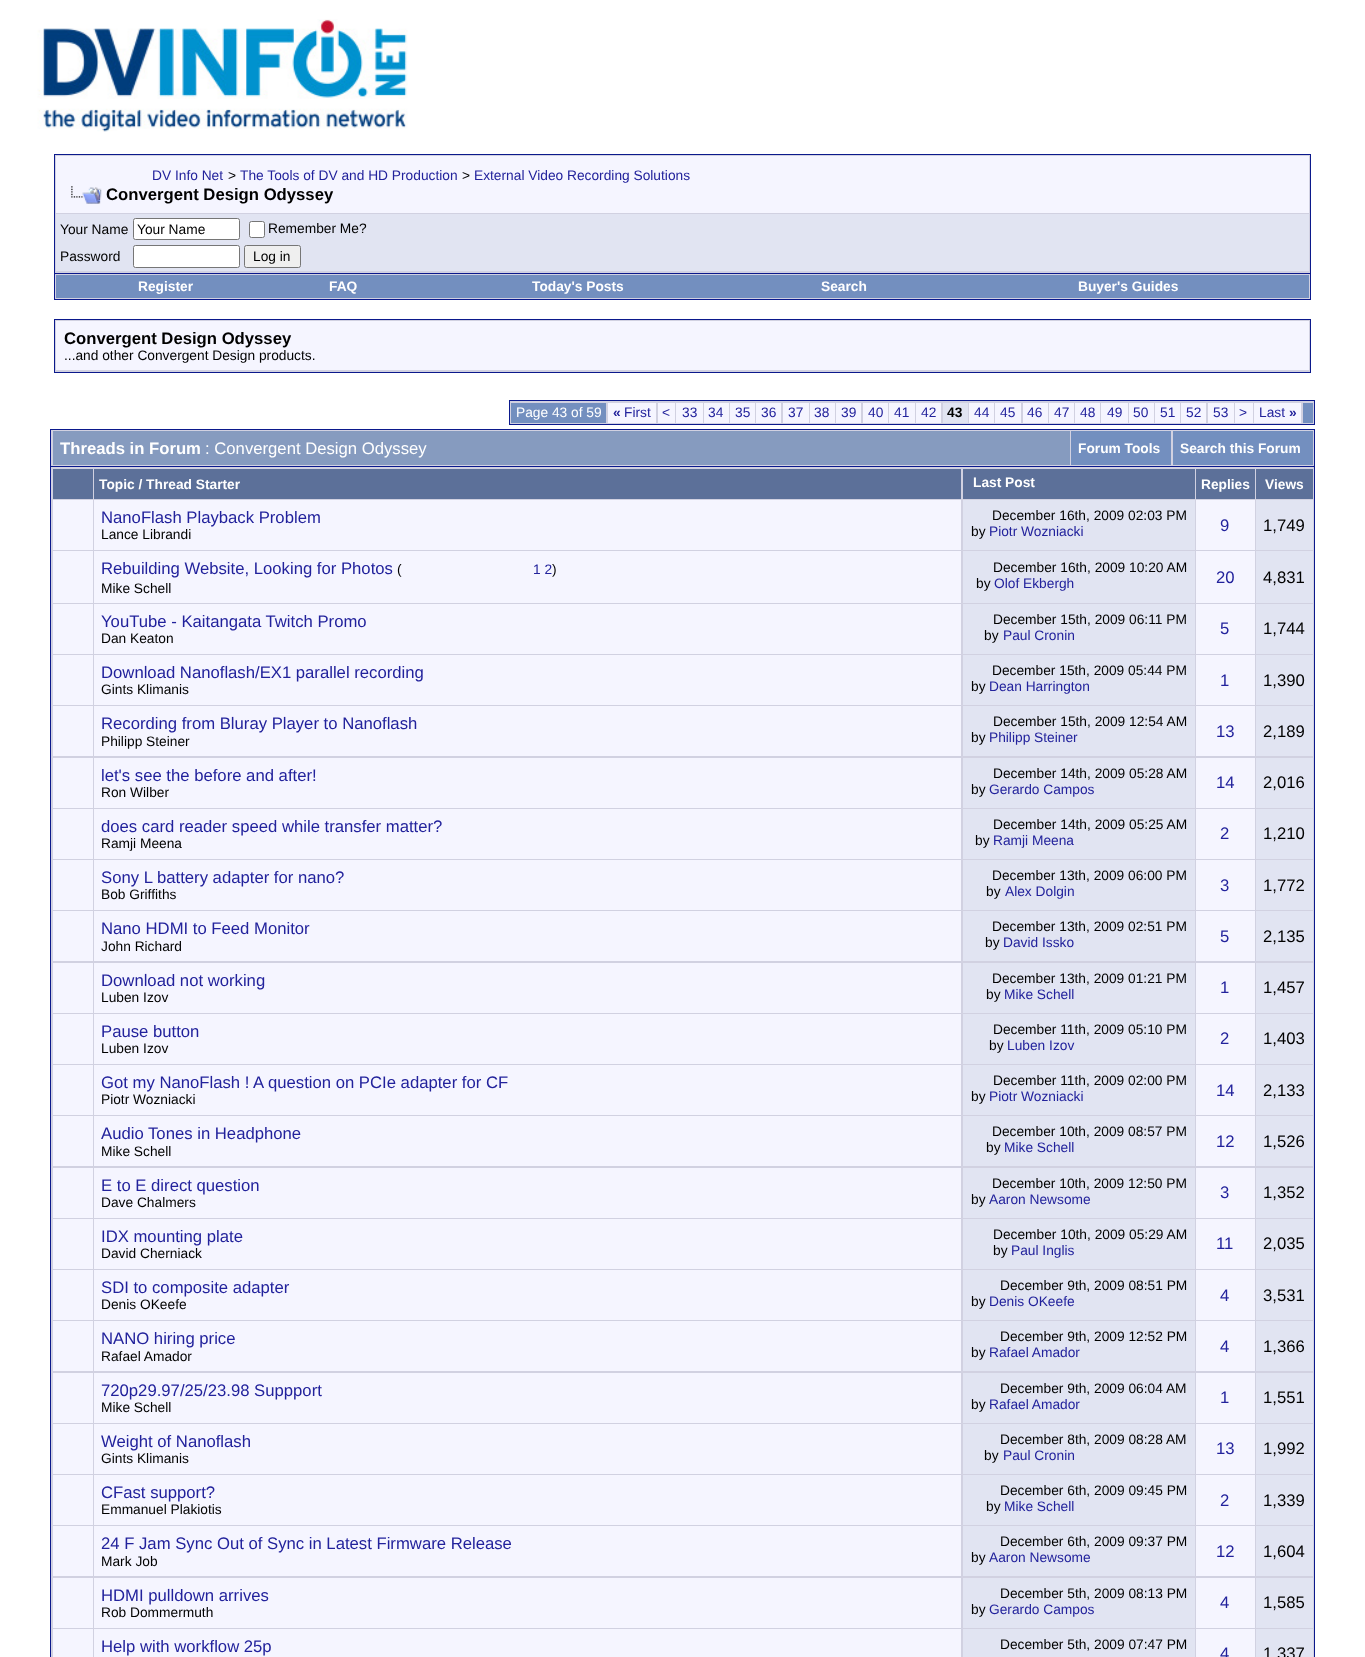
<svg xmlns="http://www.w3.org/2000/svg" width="1365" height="1657">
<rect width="100%" height="100%" fill="#fff"/>
<image x="37" y="19" width="371" height="113" href="media/1.png"/>
<rect x="54.5" y="154.5" width="1256" height="119" fill="#d1d1e1" stroke="#0b198c"/>
<rect x="56" y="156" width="1253" height="57" fill="#f5f5ff"/>
<text x="152" y="180" style="font-family:Liberation Sans;font-size:13.75px;fill:#22229c">DV Info Net</text>
<text x="228" y="180" style="font-family:Liberation Sans;font-size:13.75px;fill:#000">&gt;</text>
<text x="240" y="180" style="font-family:Liberation Sans;font-size:13.75px;fill:#22229c">The Tools of DV and HD Production</text>
<text x="462" y="180" style="font-family:Liberation Sans;font-size:13.75px;fill:#000">&gt;</text>
<text x="474" y="180" style="font-family:Liberation Sans;font-size:13.75px;fill:#22229c">External Video Recording Solutions</text>
<image x="71" y="186" width="31" height="18" href="media/2.png"/>
<text x="106" y="200" style="font-family:Liberation Sans;font-size:16.7px;font-weight:bold;fill:#000">Convergent Design Odyssey</text>
<rect x="56" y="214" width="1253" height="57" fill="#e1e4f2"/>
<text x="60" y="234" style="font-family:Liberation Sans;font-size:13.75px;fill:#000">Your Name</text>
<rect x="133.5" y="218.5" width="106" height="21" rx="2" fill="#fff" stroke="#767676"/>
<text x="137" y="234" style="font-family:Liberation Sans;font-size:13.75px;fill:#000">Your Name</text>
<rect x="249.5" y="221.5" width="15" height="16" rx="2" fill="#fff" stroke="#767676"/>
<text x="268" y="233" style="font-family:Liberation Sans;font-size:13.75px;fill:#000">Remember Me?</text>
<text x="60" y="261" style="font-family:Liberation Sans;font-size:13.75px;fill:#000">Password</text>
<rect x="133.5" y="245.5" width="106" height="22" rx="2" fill="#fff" stroke="#767676"/>
<rect x="244.5" y="245.5" width="56" height="22" rx="2" fill="#efefef" stroke="#767676"/>
<text x="253" y="261" style="font-family:Liberation Sans;font-size:13.75px;fill:#000">Log in</text>
<rect x="55" y="274" width="1255" height="25" fill="#d1d1e1"/>
<rect x="1310" y="274" width="1" height="26" fill="#0b198c"/>
<rect x="54" y="299" width="1257" height="1" fill="#0b198c"/>
<rect x="54" y="274" width="1" height="26" fill="#0b198c"/>
<rect x="56" y="275" width="1253" height="23" fill="#738fbf"/>
<text x="138" y="291" style="font-family:Liberation Sans;font-size:13.75px;font-weight:bold;fill:#fff">Register</text>
<text x="329" y="291" style="font-family:Liberation Sans;font-size:13.75px;font-weight:bold;fill:#fff">FAQ</text>
<text x="532" y="291" style="font-family:Liberation Sans;font-size:13.75px;font-weight:bold;fill:#fff">Today's Posts</text>
<text x="821" y="291" style="font-family:Liberation Sans;font-size:13.75px;font-weight:bold;fill:#fff">Search</text>
<text x="1078" y="291" style="font-family:Liberation Sans;font-size:13.75px;font-weight:bold;fill:#fff">Buyer's Guides</text>
<rect x="54.5" y="319.5" width="1256" height="53" fill="#d1d1e1" stroke="#0b198c"/>
<rect x="56" y="321" width="1253" height="49" fill="#f5f5ff"/>
<text x="64" y="344" style="font-family:Liberation Sans;font-size:16.7px;font-weight:bold;fill:#000">Convergent Design Odyssey</text>
<text x="64" y="360" style="font-family:Liberation Sans;font-size:13.75px;fill:#000">...and other Convergent Design products.</text>
<rect x="509.5" y="400.5" width="805" height="24" fill="#d1d1e1" stroke="#0b198c"/>
<rect x="511" y="403" width="95" height="20" fill="#738fbf"/>
<text x="516" y="417" style="font-family:Liberation Sans;font-size:13.75px;fill:#fff">Page 43 of 59</text>
<rect x="608" y="403" width="48" height="20" fill="#f5f5ff"/>
<text x="613" y="417" style="font-family:Liberation Sans;font-size:13.75px;font-weight:bold;fill:#22229c">«</text>
<text x="624" y="417" style="font-family:Liberation Sans;font-size:13.75px;fill:#22229c">First</text>
<rect x="658" y="403" width="17" height="20" fill="#f5f5ff"/>
<text x="662" y="417" style="font-family:Liberation Sans;font-size:13.75px;fill:#22229c">&lt;</text>
<rect x="676" y="403" width="27" height="20" fill="#f5f5ff"/>
<text x="682" y="417" style="font-family:Liberation Sans;font-size:13.75px;fill:#22229c">33</text>
<rect x="704" y="403" width="25" height="20" fill="#f5f5ff"/>
<text x="708" y="417" style="font-family:Liberation Sans;font-size:13.75px;fill:#22229c">34</text>
<rect x="730" y="403" width="25" height="20" fill="#f5f5ff"/>
<text x="735" y="417" style="font-family:Liberation Sans;font-size:13.75px;fill:#22229c">35</text>
<rect x="756" y="403" width="25" height="20" fill="#f5f5ff"/>
<text x="761" y="417" style="font-family:Liberation Sans;font-size:13.75px;fill:#22229c">36</text>
<rect x="783" y="403" width="26" height="20" fill="#f5f5ff"/>
<text x="788" y="417" style="font-family:Liberation Sans;font-size:13.75px;fill:#22229c">37</text>
<rect x="810" y="403" width="25" height="20" fill="#f5f5ff"/>
<text x="814" y="417" style="font-family:Liberation Sans;font-size:13.75px;fill:#22229c">38</text>
<rect x="836" y="403" width="25" height="20" fill="#f5f5ff"/>
<text x="841" y="417" style="font-family:Liberation Sans;font-size:13.75px;fill:#22229c">39</text>
<rect x="863" y="403" width="25" height="20" fill="#f5f5ff"/>
<text x="868" y="417" style="font-family:Liberation Sans;font-size:13.75px;fill:#22229c">40</text>
<rect x="889" y="403" width="26" height="20" fill="#f5f5ff"/>
<text x="894" y="417" style="font-family:Liberation Sans;font-size:13.75px;fill:#22229c">41</text>
<rect x="916" y="403" width="25" height="20" fill="#f5f5ff"/>
<text x="921" y="417" style="font-family:Liberation Sans;font-size:13.75px;fill:#22229c">42</text>
<rect x="943" y="403" width="25" height="20" fill="#e1e4f2"/>
<text x="947" y="417" style="font-family:Liberation Sans;font-size:13.75px;font-weight:bold;fill:#000">43</text>
<rect x="969" y="403" width="25" height="20" fill="#f5f5ff"/>
<text x="974" y="417" style="font-family:Liberation Sans;font-size:13.75px;fill:#22229c">44</text>
<rect x="995" y="403" width="26" height="20" fill="#f5f5ff"/>
<text x="1000" y="417" style="font-family:Liberation Sans;font-size:13.75px;fill:#22229c">45</text>
<rect x="1023" y="403" width="25" height="20" fill="#f5f5ff"/>
<text x="1027" y="417" style="font-family:Liberation Sans;font-size:13.75px;fill:#22229c">46</text>
<rect x="1049" y="403" width="25" height="20" fill="#f5f5ff"/>
<text x="1054" y="417" style="font-family:Liberation Sans;font-size:13.75px;fill:#22229c">47</text>
<rect x="1075" y="403" width="25" height="20" fill="#f5f5ff"/>
<text x="1080" y="417" style="font-family:Liberation Sans;font-size:13.75px;fill:#22229c">48</text>
<rect x="1101" y="403" width="27" height="20" fill="#f5f5ff"/>
<text x="1107" y="417" style="font-family:Liberation Sans;font-size:13.75px;fill:#22229c">49</text>
<rect x="1129" y="403" width="25" height="20" fill="#f5f5ff"/>
<text x="1133" y="417" style="font-family:Liberation Sans;font-size:13.75px;fill:#22229c">50</text>
<rect x="1155" y="403" width="25" height="20" fill="#f5f5ff"/>
<text x="1160" y="417" style="font-family:Liberation Sans;font-size:13.75px;fill:#22229c">51</text>
<rect x="1181" y="403" width="25" height="20" fill="#f5f5ff"/>
<text x="1186" y="417" style="font-family:Liberation Sans;font-size:13.75px;fill:#22229c">52</text>
<rect x="1208" y="403" width="26" height="20" fill="#f5f5ff"/>
<text x="1213" y="417" style="font-family:Liberation Sans;font-size:13.75px;fill:#22229c">53</text>
<rect x="1235" y="403" width="18" height="20" fill="#f5f5ff"/>
<text x="1239" y="417" style="font-family:Liberation Sans;font-size:13.75px;fill:#22229c">&gt;</text>
<rect x="1254" y="403" width="47" height="20" fill="#f5f5ff"/>
<text x="1259" y="417" style="font-family:Liberation Sans;font-size:13.75px;fill:#22229c">Last</text>
<text x="1289" y="417" style="font-family:Liberation Sans;font-size:13.75px;font-weight:bold;fill:#22229c">»</text>
<rect x="1303" y="403" width="10" height="20" fill="#738fbf"/>
<rect x="51" y="430" width="1263" height="36" fill="#d1d1e1"/>
<rect x="50" y="429" width="1265" height="1" fill="#0b198c"/>
<rect x="1314" y="429" width="1" height="37" fill="#0b198c"/>
<rect x="50" y="429" width="1" height="37" fill="#0b198c"/>
<rect x="53" y="431" width="1017" height="34" fill="#869bbf"/>
<text x="60" y="454" style="font-family:Liberation Sans;font-size:16.7px;font-weight:bold;fill:#fff">Threads in Forum</text>
<text x="205" y="454" style="font-family:Liberation Sans;font-size:16.7px;fill:#fff">: Convergent Design Odyssey</text>
<rect x="1071" y="431" width="100" height="34" fill="#738fbf"/>
<text x="1078" y="453" style="font-family:Liberation Sans;font-size:13.75px;font-weight:bold;fill:#fff">Forum Tools</text>
<rect x="1173" y="431" width="140" height="34" fill="#738fbf"/>
<text x="1180" y="453" style="font-family:Liberation Sans;font-size:13.75px;font-weight:bold;fill:#fff">Search this Forum</text>
<rect x="50.5" y="466.5" width="1264" height="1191" fill="#d1d1e1" stroke="#0b198c"/>
<rect x="53" y="469" width="40" height="30" fill="#5c7099"/>
<rect x="94" y="469" width="867" height="30" fill="#5c7099"/>
<text x="99" y="489" style="font-family:Liberation Sans;font-size:13.75px;font-weight:bold;fill:#fff">Topic / Thread Starter</text>
<rect x="963" y="469" width="232" height="30" fill="#5c7099"/>
<text x="973" y="487" style="font-family:Liberation Sans;font-size:13.75px;font-weight:bold;fill:#fff">Last Post</text>
<rect x="1196" y="469" width="59" height="30" fill="#5c7099"/>
<text x="1201" y="489" style="font-family:Liberation Sans;font-size:13.75px;font-weight:bold;fill:#fff">Replies</text>
<rect x="1256" y="469" width="57" height="30" fill="#5c7099"/>
<text x="1265" y="489" style="font-family:Liberation Sans;font-size:13.75px;font-weight:bold;fill:#fff">Views</text>
<rect x="53" y="500" width="40" height="50" fill="#f5f5ff"/>
<rect x="94" y="500" width="867" height="50" fill="#f5f5ff"/>
<text x="101" y="523" style="font-family:Liberation Sans;font-size:16.7px;fill:#22229c">NanoFlash Playback Problem</text>
<text x="101" y="539" style="font-family:Liberation Sans;font-size:13.75px;fill:#000">Lance Librandi</text>
<rect x="963" y="500" width="232" height="50" fill="#e1e4f2"/>
<text x="992" y="520" style="font-family:Liberation Sans;font-size:13.75px;fill:#000">December 16th, 2009 02:03 PM</text>
<text x="971" y="536" style="font-family:Liberation Sans;font-size:13.75px;fill:#000">by</text>
<text x="989" y="536" style="font-family:Liberation Sans;font-size:13.75px;fill:#22229c">Piotr Wozniacki</text>
<rect x="1196" y="500" width="59" height="50" fill="#f5f5ff"/>
<text x="1220" y="531" style="font-family:Liberation Sans;font-size:16.7px;fill:#22229c">9</text>
<rect x="1256" y="500" width="57" height="50" fill="#e1e4f2"/>
<text x="1263" y="531" style="font-family:Liberation Sans;font-size:16.7px;fill:#000">1,749</text>
<rect x="53" y="551" width="40" height="52" fill="#f5f5ff"/>
<rect x="94" y="551" width="867" height="52" fill="#f5f5ff"/>
<text x="101" y="574" style="font-family:Liberation Sans;font-size:16.7px;fill:#22229c">Rebuilding Website, Looking for Photos</text>
<text x="397" y="574" style="font-family:Liberation Sans;font-size:13.75px;fill:#000">(</text>
<text x="533" y="574" style="font-family:Liberation Sans;font-size:13.75px;fill:#22229c">1 2</text>
<text x="552" y="574" style="font-family:Liberation Sans;font-size:13.75px;fill:#000">)</text>
<text x="101" y="593" style="font-family:Liberation Sans;font-size:13.75px;fill:#000">Mike Schell</text>
<rect x="963" y="551" width="232" height="52" fill="#e1e4f2"/>
<text x="993" y="572" style="font-family:Liberation Sans;font-size:13.75px;fill:#000">December 16th, 2009 10:20 AM</text>
<text x="976" y="588" style="font-family:Liberation Sans;font-size:13.75px;fill:#000">by</text>
<text x="994" y="588" style="font-family:Liberation Sans;font-size:13.75px;fill:#22229c">Olof Ekbergh</text>
<rect x="1196" y="551" width="59" height="52" fill="#f5f5ff"/>
<text x="1216" y="583" style="font-family:Liberation Sans;font-size:16.7px;fill:#22229c">20</text>
<rect x="1256" y="551" width="57" height="52" fill="#e1e4f2"/>
<text x="1263" y="583" style="font-family:Liberation Sans;font-size:16.7px;fill:#000">4,831</text>
<rect x="53" y="604" width="40" height="50" fill="#f5f5ff"/>
<rect x="94" y="604" width="867" height="50" fill="#f5f5ff"/>
<text x="101" y="627" style="font-family:Liberation Sans;font-size:16.7px;fill:#22229c">YouTube - Kaitangata Twitch Promo</text>
<text x="101" y="643" style="font-family:Liberation Sans;font-size:13.75px;fill:#000">Dan Keaton</text>
<rect x="963" y="604" width="232" height="50" fill="#e1e4f2"/>
<text x="993" y="624" style="font-family:Liberation Sans;font-size:13.75px;fill:#000">December 15th, 2009 06:11 PM</text>
<text x="984" y="640" style="font-family:Liberation Sans;font-size:13.75px;fill:#000">by</text>
<text x="1003" y="640" style="font-family:Liberation Sans;font-size:13.75px;fill:#22229c">Paul Cronin</text>
<rect x="1196" y="604" width="59" height="50" fill="#f5f5ff"/>
<text x="1220" y="634" style="font-family:Liberation Sans;font-size:16.7px;fill:#22229c">5</text>
<rect x="1256" y="604" width="57" height="50" fill="#e1e4f2"/>
<text x="1263" y="634" style="font-family:Liberation Sans;font-size:16.7px;fill:#000">1,744</text>
<rect x="53" y="655" width="40" height="50" fill="#f5f5ff"/>
<rect x="94" y="655" width="867" height="50" fill="#f5f5ff"/>
<text x="101" y="678" style="font-family:Liberation Sans;font-size:16.7px;fill:#22229c">Download Nanoflash/EX1 parallel recording</text>
<text x="101" y="694" style="font-family:Liberation Sans;font-size:13.75px;fill:#000">Gints Klimanis</text>
<rect x="963" y="655" width="232" height="50" fill="#e1e4f2"/>
<text x="992" y="675" style="font-family:Liberation Sans;font-size:13.75px;fill:#000">December 15th, 2009 05:44 PM</text>
<text x="971" y="691" style="font-family:Liberation Sans;font-size:13.75px;fill:#000">by</text>
<text x="989" y="691" style="font-family:Liberation Sans;font-size:13.75px;fill:#22229c">Dean Harrington</text>
<rect x="1196" y="655" width="59" height="50" fill="#f5f5ff"/>
<text x="1220" y="686" style="font-family:Liberation Sans;font-size:16.7px;fill:#22229c">1</text>
<rect x="1256" y="655" width="57" height="50" fill="#e1e4f2"/>
<text x="1263" y="686" style="font-family:Liberation Sans;font-size:16.7px;fill:#000">1,390</text>
<rect x="53" y="706" width="40" height="50" fill="#f5f5ff"/>
<rect x="94" y="706" width="867" height="50" fill="#f5f5ff"/>
<text x="101" y="729" style="font-family:Liberation Sans;font-size:16.7px;fill:#22229c">Recording from Bluray Player to Nanoflash</text>
<text x="101" y="746" style="font-family:Liberation Sans;font-size:13.75px;fill:#000">Philipp Steiner</text>
<rect x="963" y="706" width="232" height="50" fill="#e1e4f2"/>
<text x="993" y="726" style="font-family:Liberation Sans;font-size:13.75px;fill:#000">December 15th, 2009 12:54 AM</text>
<text x="971" y="742" style="font-family:Liberation Sans;font-size:13.75px;fill:#000">by</text>
<text x="989" y="742" style="font-family:Liberation Sans;font-size:13.75px;fill:#22229c">Philipp Steiner</text>
<rect x="1196" y="706" width="59" height="50" fill="#f5f5ff"/>
<text x="1216" y="737" style="font-family:Liberation Sans;font-size:16.7px;fill:#22229c">13</text>
<rect x="1256" y="706" width="57" height="50" fill="#e1e4f2"/>
<text x="1263" y="737" style="font-family:Liberation Sans;font-size:16.7px;fill:#000">2,189</text>
<rect x="53" y="758" width="40" height="50" fill="#f5f5ff"/>
<rect x="94" y="758" width="867" height="50" fill="#f5f5ff"/>
<text x="101" y="781" style="font-family:Liberation Sans;font-size:16.7px;fill:#22229c">let's see the before and after!</text>
<text x="101" y="797" style="font-family:Liberation Sans;font-size:13.75px;fill:#000">Ron Wilber</text>
<rect x="963" y="758" width="232" height="50" fill="#e1e4f2"/>
<text x="993" y="778" style="font-family:Liberation Sans;font-size:13.75px;fill:#000">December 14th, 2009 05:28 AM</text>
<text x="971" y="794" style="font-family:Liberation Sans;font-size:13.75px;fill:#000">by</text>
<text x="989" y="794" style="font-family:Liberation Sans;font-size:13.75px;fill:#22229c">Gerardo Campos</text>
<rect x="1196" y="758" width="59" height="50" fill="#f5f5ff"/>
<text x="1216" y="788" style="font-family:Liberation Sans;font-size:16.7px;fill:#22229c">14</text>
<rect x="1256" y="758" width="57" height="50" fill="#e1e4f2"/>
<text x="1263" y="788" style="font-family:Liberation Sans;font-size:16.7px;fill:#000">2,016</text>
<rect x="53" y="809" width="40" height="50" fill="#f5f5ff"/>
<rect x="94" y="809" width="867" height="50" fill="#f5f5ff"/>
<text x="101" y="832" style="font-family:Liberation Sans;font-size:16.7px;fill:#22229c">does card reader speed while transfer matter?</text>
<text x="101" y="848" style="font-family:Liberation Sans;font-size:13.75px;fill:#000">Ramji Meena</text>
<rect x="963" y="809" width="232" height="50" fill="#e1e4f2"/>
<text x="993" y="829" style="font-family:Liberation Sans;font-size:13.75px;fill:#000">December 14th, 2009 05:25 AM</text>
<text x="975" y="845" style="font-family:Liberation Sans;font-size:13.75px;fill:#000">by</text>
<text x="993" y="845" style="font-family:Liberation Sans;font-size:13.75px;fill:#22229c">Ramji Meena</text>
<rect x="1196" y="809" width="59" height="50" fill="#f5f5ff"/>
<text x="1220" y="839" style="font-family:Liberation Sans;font-size:16.7px;fill:#22229c">2</text>
<rect x="1256" y="809" width="57" height="50" fill="#e1e4f2"/>
<text x="1263" y="839" style="font-family:Liberation Sans;font-size:16.7px;fill:#000">1,210</text>
<rect x="53" y="860" width="40" height="50" fill="#f5f5ff"/>
<rect x="94" y="860" width="867" height="50" fill="#f5f5ff"/>
<text x="101" y="883" style="font-family:Liberation Sans;font-size:16.7px;fill:#22229c">Sony L battery adapter for nano?</text>
<text x="101" y="899" style="font-family:Liberation Sans;font-size:13.75px;fill:#000">Bob Griffiths</text>
<rect x="963" y="860" width="232" height="50" fill="#e1e4f2"/>
<text x="992" y="880" style="font-family:Liberation Sans;font-size:13.75px;fill:#000">December 13th, 2009 06:00 PM</text>
<text x="986" y="896" style="font-family:Liberation Sans;font-size:13.75px;fill:#000">by</text>
<text x="1005" y="896" style="font-family:Liberation Sans;font-size:13.75px;fill:#22229c">Alex Dolgin</text>
<rect x="1196" y="860" width="59" height="50" fill="#f5f5ff"/>
<text x="1220" y="891" style="font-family:Liberation Sans;font-size:16.7px;fill:#22229c">3</text>
<rect x="1256" y="860" width="57" height="50" fill="#e1e4f2"/>
<text x="1263" y="891" style="font-family:Liberation Sans;font-size:16.7px;fill:#000">1,772</text>
<rect x="53" y="911" width="40" height="50" fill="#f5f5ff"/>
<rect x="94" y="911" width="867" height="50" fill="#f5f5ff"/>
<text x="101" y="934" style="font-family:Liberation Sans;font-size:16.7px;fill:#22229c">Nano HDMI to Feed Monitor</text>
<text x="101" y="951" style="font-family:Liberation Sans;font-size:13.75px;fill:#000">John Richard</text>
<rect x="963" y="911" width="232" height="50" fill="#e1e4f2"/>
<text x="992" y="931" style="font-family:Liberation Sans;font-size:13.75px;fill:#000">December 13th, 2009 02:51 PM</text>
<text x="985" y="947" style="font-family:Liberation Sans;font-size:13.75px;fill:#000">by</text>
<text x="1003" y="947" style="font-family:Liberation Sans;font-size:13.75px;fill:#22229c">David Issko</text>
<rect x="1196" y="911" width="59" height="50" fill="#f5f5ff"/>
<text x="1220" y="942" style="font-family:Liberation Sans;font-size:16.7px;fill:#22229c">5</text>
<rect x="1256" y="911" width="57" height="50" fill="#e1e4f2"/>
<text x="1263" y="942" style="font-family:Liberation Sans;font-size:16.7px;fill:#000">2,135</text>
<rect x="53" y="963" width="40" height="50" fill="#f5f5ff"/>
<rect x="94" y="963" width="867" height="50" fill="#f5f5ff"/>
<text x="101" y="986" style="font-family:Liberation Sans;font-size:16.7px;fill:#22229c">Download not working</text>
<text x="101" y="1002" style="font-family:Liberation Sans;font-size:13.75px;fill:#000">Luben Izov</text>
<rect x="963" y="963" width="232" height="50" fill="#e1e4f2"/>
<text x="992" y="983" style="font-family:Liberation Sans;font-size:13.75px;fill:#000">December 13th, 2009 01:21 PM</text>
<text x="986" y="999" style="font-family:Liberation Sans;font-size:13.75px;fill:#000">by</text>
<text x="1004" y="999" style="font-family:Liberation Sans;font-size:13.75px;fill:#22229c">Mike Schell</text>
<rect x="1196" y="963" width="59" height="50" fill="#f5f5ff"/>
<text x="1220" y="993" style="font-family:Liberation Sans;font-size:16.7px;fill:#22229c">1</text>
<rect x="1256" y="963" width="57" height="50" fill="#e1e4f2"/>
<text x="1263" y="993" style="font-family:Liberation Sans;font-size:16.7px;fill:#000">1,457</text>
<rect x="53" y="1014" width="40" height="50" fill="#f5f5ff"/>
<rect x="94" y="1014" width="867" height="50" fill="#f5f5ff"/>
<text x="101" y="1037" style="font-family:Liberation Sans;font-size:16.7px;fill:#22229c">Pause button</text>
<text x="101" y="1053" style="font-family:Liberation Sans;font-size:13.75px;fill:#000">Luben Izov</text>
<rect x="963" y="1014" width="232" height="50" fill="#e1e4f2"/>
<text x="993" y="1034" style="font-family:Liberation Sans;font-size:13.75px;fill:#000">December 11th, 2009 05:10 PM</text>
<text x="989" y="1050" style="font-family:Liberation Sans;font-size:13.75px;fill:#000">by</text>
<text x="1007" y="1050" style="font-family:Liberation Sans;font-size:13.75px;fill:#22229c">Luben Izov</text>
<rect x="1196" y="1014" width="59" height="50" fill="#f5f5ff"/>
<text x="1220" y="1044" style="font-family:Liberation Sans;font-size:16.7px;fill:#22229c">2</text>
<rect x="1256" y="1014" width="57" height="50" fill="#e1e4f2"/>
<text x="1263" y="1044" style="font-family:Liberation Sans;font-size:16.7px;fill:#000">1,403</text>
<rect x="53" y="1065" width="40" height="50" fill="#f5f5ff"/>
<rect x="94" y="1065" width="867" height="50" fill="#f5f5ff"/>
<text x="101" y="1088" style="font-family:Liberation Sans;font-size:16.7px;fill:#22229c">Got my NanoFlash ! A question on PCIe adapter for CF</text>
<text x="101" y="1104" style="font-family:Liberation Sans;font-size:13.75px;fill:#000">Piotr Wozniacki</text>
<rect x="963" y="1065" width="232" height="50" fill="#e1e4f2"/>
<text x="993" y="1085" style="font-family:Liberation Sans;font-size:13.75px;fill:#000">December 11th, 2009 02:00 PM</text>
<text x="971" y="1101" style="font-family:Liberation Sans;font-size:13.75px;fill:#000">by</text>
<text x="989" y="1101" style="font-family:Liberation Sans;font-size:13.75px;fill:#22229c">Piotr Wozniacki</text>
<rect x="1196" y="1065" width="59" height="50" fill="#f5f5ff"/>
<text x="1216" y="1096" style="font-family:Liberation Sans;font-size:16.7px;fill:#22229c">14</text>
<rect x="1256" y="1065" width="57" height="50" fill="#e1e4f2"/>
<text x="1263" y="1096" style="font-family:Liberation Sans;font-size:16.7px;fill:#000">2,133</text>
<rect x="53" y="1116" width="40" height="50" fill="#f5f5ff"/>
<rect x="94" y="1116" width="867" height="50" fill="#f5f5ff"/>
<text x="101" y="1139" style="font-family:Liberation Sans;font-size:16.7px;fill:#22229c">Audio Tones in Headphone</text>
<text x="101" y="1156" style="font-family:Liberation Sans;font-size:13.75px;fill:#000">Mike Schell</text>
<rect x="963" y="1116" width="232" height="50" fill="#e1e4f2"/>
<text x="992" y="1136" style="font-family:Liberation Sans;font-size:13.75px;fill:#000">December 10th, 2009 08:57 PM</text>
<text x="986" y="1152" style="font-family:Liberation Sans;font-size:13.75px;fill:#000">by</text>
<text x="1004" y="1152" style="font-family:Liberation Sans;font-size:13.75px;fill:#22229c">Mike Schell</text>
<rect x="1196" y="1116" width="59" height="50" fill="#f5f5ff"/>
<text x="1216" y="1147" style="font-family:Liberation Sans;font-size:16.7px;fill:#22229c">12</text>
<rect x="1256" y="1116" width="57" height="50" fill="#e1e4f2"/>
<text x="1263" y="1147" style="font-family:Liberation Sans;font-size:16.7px;fill:#000">1,526</text>
<rect x="53" y="1168" width="40" height="50" fill="#f5f5ff"/>
<rect x="94" y="1168" width="867" height="50" fill="#f5f5ff"/>
<text x="101" y="1191" style="font-family:Liberation Sans;font-size:16.7px;fill:#22229c">E to E direct question</text>
<text x="101" y="1207" style="font-family:Liberation Sans;font-size:13.75px;fill:#000">Dave Chalmers</text>
<rect x="963" y="1168" width="232" height="50" fill="#e1e4f2"/>
<text x="992" y="1188" style="font-family:Liberation Sans;font-size:13.75px;fill:#000">December 10th, 2009 12:50 PM</text>
<text x="971" y="1204" style="font-family:Liberation Sans;font-size:13.75px;fill:#000">by</text>
<text x="989" y="1204" style="font-family:Liberation Sans;font-size:13.75px;fill:#22229c">Aaron Newsome</text>
<rect x="1196" y="1168" width="59" height="50" fill="#f5f5ff"/>
<text x="1220" y="1198" style="font-family:Liberation Sans;font-size:16.7px;fill:#22229c">3</text>
<rect x="1256" y="1168" width="57" height="50" fill="#e1e4f2"/>
<text x="1263" y="1198" style="font-family:Liberation Sans;font-size:16.7px;fill:#000">1,352</text>
<rect x="53" y="1219" width="40" height="50" fill="#f5f5ff"/>
<rect x="94" y="1219" width="867" height="50" fill="#f5f5ff"/>
<text x="101" y="1242" style="font-family:Liberation Sans;font-size:16.7px;fill:#22229c">IDX mounting plate</text>
<text x="101" y="1258" style="font-family:Liberation Sans;font-size:13.75px;fill:#000">David Cherniack</text>
<rect x="963" y="1219" width="232" height="50" fill="#e1e4f2"/>
<text x="993" y="1239" style="font-family:Liberation Sans;font-size:13.75px;fill:#000">December 10th, 2009 05:29 AM</text>
<text x="993" y="1255" style="font-family:Liberation Sans;font-size:13.75px;fill:#000">by</text>
<text x="1011" y="1255" style="font-family:Liberation Sans;font-size:13.75px;fill:#22229c">Paul Inglis</text>
<rect x="1196" y="1219" width="59" height="50" fill="#f5f5ff"/>
<text x="1216" y="1249" style="font-family:Liberation Sans;font-size:16.7px;fill:#22229c">11</text>
<rect x="1256" y="1219" width="57" height="50" fill="#e1e4f2"/>
<text x="1263" y="1249" style="font-family:Liberation Sans;font-size:16.7px;fill:#000">2,035</text>
<rect x="53" y="1270" width="40" height="50" fill="#f5f5ff"/>
<rect x="94" y="1270" width="867" height="50" fill="#f5f5ff"/>
<text x="101" y="1293" style="font-family:Liberation Sans;font-size:16.7px;fill:#22229c">SDI to composite adapter</text>
<text x="101" y="1309" style="font-family:Liberation Sans;font-size:13.75px;fill:#000">Denis OKeefe</text>
<rect x="963" y="1270" width="232" height="50" fill="#e1e4f2"/>
<text x="1000" y="1290" style="font-family:Liberation Sans;font-size:13.75px;fill:#000">December 9th, 2009 08:51 PM</text>
<text x="971" y="1306" style="font-family:Liberation Sans;font-size:13.75px;fill:#000">by</text>
<text x="989" y="1306" style="font-family:Liberation Sans;font-size:13.75px;fill:#22229c">Denis OKeefe</text>
<rect x="1196" y="1270" width="59" height="50" fill="#f5f5ff"/>
<text x="1220" y="1301" style="font-family:Liberation Sans;font-size:16.7px;fill:#22229c">4</text>
<rect x="1256" y="1270" width="57" height="50" fill="#e1e4f2"/>
<text x="1263" y="1301" style="font-family:Liberation Sans;font-size:16.7px;fill:#000">3,531</text>
<rect x="53" y="1321" width="40" height="50" fill="#f5f5ff"/>
<rect x="94" y="1321" width="867" height="50" fill="#f5f5ff"/>
<text x="101" y="1344" style="font-family:Liberation Sans;font-size:16.7px;fill:#22229c">NANO hiring price</text>
<text x="101" y="1361" style="font-family:Liberation Sans;font-size:13.75px;fill:#000">Rafael Amador</text>
<rect x="963" y="1321" width="232" height="50" fill="#e1e4f2"/>
<text x="1000" y="1341" style="font-family:Liberation Sans;font-size:13.75px;fill:#000">December 9th, 2009 12:52 PM</text>
<text x="971" y="1357" style="font-family:Liberation Sans;font-size:13.75px;fill:#000">by</text>
<text x="989" y="1357" style="font-family:Liberation Sans;font-size:13.75px;fill:#22229c">Rafael Amador</text>
<rect x="1196" y="1321" width="59" height="50" fill="#f5f5ff"/>
<text x="1220" y="1352" style="font-family:Liberation Sans;font-size:16.7px;fill:#22229c">4</text>
<rect x="1256" y="1321" width="57" height="50" fill="#e1e4f2"/>
<text x="1263" y="1352" style="font-family:Liberation Sans;font-size:16.7px;fill:#000">1,366</text>
<rect x="53" y="1373" width="40" height="50" fill="#f5f5ff"/>
<rect x="94" y="1373" width="867" height="50" fill="#f5f5ff"/>
<text x="101" y="1396" style="font-family:Liberation Sans;font-size:16.7px;fill:#22229c">720p29.97/25/23.98 Suppport</text>
<text x="101" y="1412" style="font-family:Liberation Sans;font-size:13.75px;fill:#000">Mike Schell</text>
<rect x="963" y="1373" width="232" height="50" fill="#e1e4f2"/>
<text x="1000" y="1393" style="font-family:Liberation Sans;font-size:13.75px;fill:#000">December 9th, 2009 06:04 AM</text>
<text x="971" y="1409" style="font-family:Liberation Sans;font-size:13.75px;fill:#000">by</text>
<text x="989" y="1409" style="font-family:Liberation Sans;font-size:13.75px;fill:#22229c">Rafael Amador</text>
<rect x="1196" y="1373" width="59" height="50" fill="#f5f5ff"/>
<text x="1220" y="1403" style="font-family:Liberation Sans;font-size:16.7px;fill:#22229c">1</text>
<rect x="1256" y="1373" width="57" height="50" fill="#e1e4f2"/>
<text x="1263" y="1403" style="font-family:Liberation Sans;font-size:16.7px;fill:#000">1,551</text>
<rect x="53" y="1424" width="40" height="50" fill="#f5f5ff"/>
<rect x="94" y="1424" width="867" height="50" fill="#f5f5ff"/>
<text x="101" y="1447" style="font-family:Liberation Sans;font-size:16.7px;fill:#22229c">Weight of Nanoflash</text>
<text x="101" y="1463" style="font-family:Liberation Sans;font-size:13.75px;fill:#000">Gints Klimanis</text>
<rect x="963" y="1424" width="232" height="50" fill="#e1e4f2"/>
<text x="1000" y="1444" style="font-family:Liberation Sans;font-size:13.75px;fill:#000">December 8th, 2009 08:28 AM</text>
<text x="984" y="1460" style="font-family:Liberation Sans;font-size:13.75px;fill:#000">by</text>
<text x="1003" y="1460" style="font-family:Liberation Sans;font-size:13.75px;fill:#22229c">Paul Cronin</text>
<rect x="1196" y="1424" width="59" height="50" fill="#f5f5ff"/>
<text x="1216" y="1454" style="font-family:Liberation Sans;font-size:16.7px;fill:#22229c">13</text>
<rect x="1256" y="1424" width="57" height="50" fill="#e1e4f2"/>
<text x="1263" y="1454" style="font-family:Liberation Sans;font-size:16.7px;fill:#000">1,992</text>
<rect x="53" y="1475" width="40" height="50" fill="#f5f5ff"/>
<rect x="94" y="1475" width="867" height="50" fill="#f5f5ff"/>
<text x="101" y="1498" style="font-family:Liberation Sans;font-size:16.7px;fill:#22229c">CFast support?</text>
<text x="101" y="1514" style="font-family:Liberation Sans;font-size:13.75px;fill:#000">Emmanuel Plakiotis</text>
<rect x="963" y="1475" width="232" height="50" fill="#e1e4f2"/>
<text x="1000" y="1495" style="font-family:Liberation Sans;font-size:13.75px;fill:#000">December 6th, 2009 09:45 PM</text>
<text x="986" y="1511" style="font-family:Liberation Sans;font-size:13.75px;fill:#000">by</text>
<text x="1004" y="1511" style="font-family:Liberation Sans;font-size:13.75px;fill:#22229c">Mike Schell</text>
<rect x="1196" y="1475" width="59" height="50" fill="#f5f5ff"/>
<text x="1220" y="1506" style="font-family:Liberation Sans;font-size:16.7px;fill:#22229c">2</text>
<rect x="1256" y="1475" width="57" height="50" fill="#e1e4f2"/>
<text x="1263" y="1506" style="font-family:Liberation Sans;font-size:16.7px;fill:#000">1,339</text>
<rect x="53" y="1526" width="40" height="50" fill="#f5f5ff"/>
<rect x="94" y="1526" width="867" height="50" fill="#f5f5ff"/>
<text x="101" y="1549" style="font-family:Liberation Sans;font-size:16.7px;fill:#22229c">24 F Jam Sync Out of Sync in Latest Firmware Release</text>
<text x="101" y="1566" style="font-family:Liberation Sans;font-size:13.75px;fill:#000">Mark Job</text>
<rect x="963" y="1526" width="232" height="50" fill="#e1e4f2"/>
<text x="1000" y="1546" style="font-family:Liberation Sans;font-size:13.75px;fill:#000">December 6th, 2009 09:37 PM</text>
<text x="971" y="1562" style="font-family:Liberation Sans;font-size:13.75px;fill:#000">by</text>
<text x="989" y="1562" style="font-family:Liberation Sans;font-size:13.75px;fill:#22229c">Aaron Newsome</text>
<rect x="1196" y="1526" width="59" height="50" fill="#f5f5ff"/>
<text x="1216" y="1557" style="font-family:Liberation Sans;font-size:16.7px;fill:#22229c">12</text>
<rect x="1256" y="1526" width="57" height="50" fill="#e1e4f2"/>
<text x="1263" y="1557" style="font-family:Liberation Sans;font-size:16.7px;fill:#000">1,604</text>
<rect x="53" y="1578" width="40" height="50" fill="#f5f5ff"/>
<rect x="94" y="1578" width="867" height="50" fill="#f5f5ff"/>
<text x="101" y="1601" style="font-family:Liberation Sans;font-size:16.7px;fill:#22229c">HDMI pulldown arrives</text>
<text x="101" y="1617" style="font-family:Liberation Sans;font-size:13.75px;fill:#000">Rob Dommermuth</text>
<rect x="963" y="1578" width="232" height="50" fill="#e1e4f2"/>
<text x="1000" y="1598" style="font-family:Liberation Sans;font-size:13.75px;fill:#000">December 5th, 2009 08:13 PM</text>
<text x="971" y="1614" style="font-family:Liberation Sans;font-size:13.75px;fill:#000">by</text>
<text x="989" y="1614" style="font-family:Liberation Sans;font-size:13.75px;fill:#22229c">Gerardo Campos</text>
<rect x="1196" y="1578" width="59" height="50" fill="#f5f5ff"/>
<text x="1220" y="1608" style="font-family:Liberation Sans;font-size:16.7px;fill:#22229c">4</text>
<rect x="1256" y="1578" width="57" height="50" fill="#e1e4f2"/>
<text x="1263" y="1608" style="font-family:Liberation Sans;font-size:16.7px;fill:#000">1,585</text>
<rect x="53" y="1629" width="40" height="28" fill="#f5f5ff"/>
<rect x="94" y="1629" width="867" height="28" fill="#f5f5ff"/>
<text x="101" y="1652" style="font-family:Liberation Sans;font-size:16.7px;fill:#22229c">Help with workflow 25p</text>
<rect x="963" y="1629" width="232" height="28" fill="#e1e4f2"/>
<text x="1000" y="1649" style="font-family:Liberation Sans;font-size:13.75px;fill:#000">December 5th, 2009 07:47 PM</text>
<rect x="1196" y="1629" width="59" height="28" fill="#f5f5ff"/>
<text x="1220" y="1659" style="font-family:Liberation Sans;font-size:16.7px;fill:#22229c">4</text>
<rect x="1256" y="1629" width="57" height="28" fill="#e1e4f2"/>
<text x="1263" y="1659" style="font-family:Liberation Sans;font-size:16.7px;fill:#000">1,337</text>
</svg>
